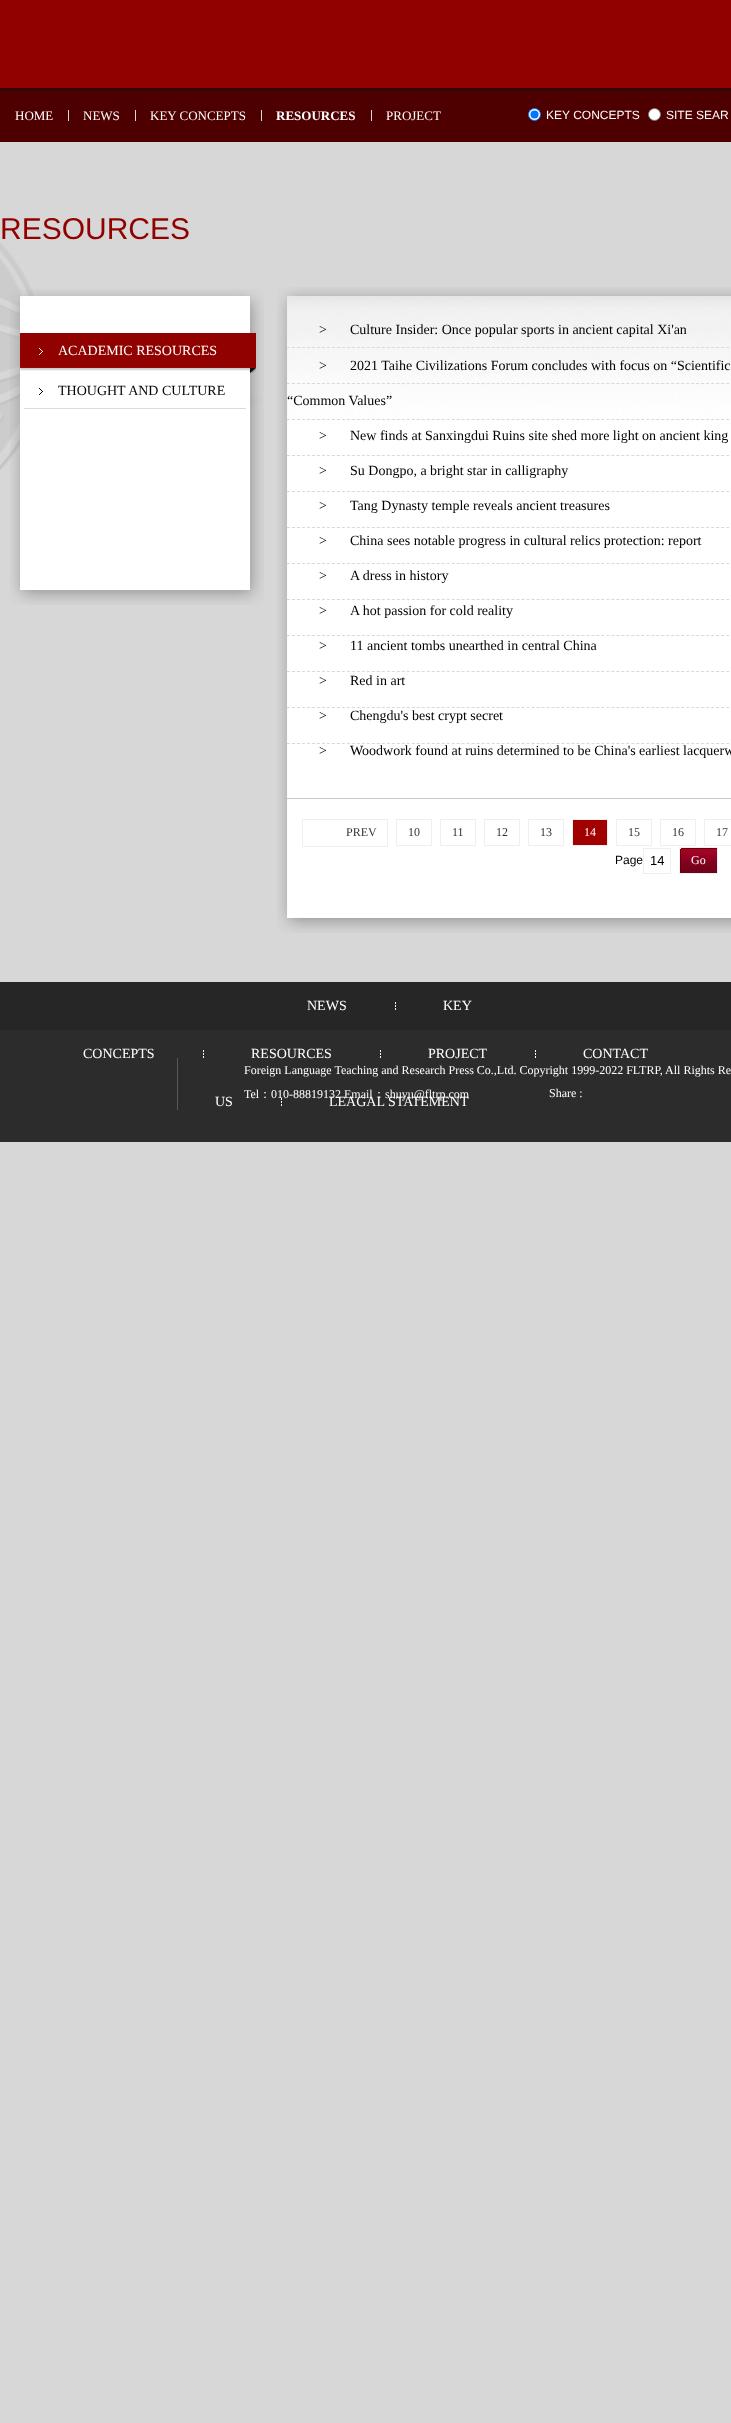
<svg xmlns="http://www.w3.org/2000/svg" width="731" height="2423">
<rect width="100%" height="100%" fill="#d7d7d7"/>
<rect width="731" height="88" fill="#910100"/>
<rect y="88" width="731" height="3" fill="#320707"/>
<rect y="91" width="731" height="51" fill="#4e0000"/>
<text x="15" y="120" style="font-family:Liberation Serif;font-size:13px;fill:#fff">HOME</text>
<image x="68" y="110" width="1" height="11" href="media/1.png"/>
<text x="83" y="120" style="font-family:Liberation Serif;font-size:13px;fill:#fff">NEWS</text>
<image x="135" y="110" width="1" height="11" href="media/1.png"/>
<text x="150" y="120" style="font-family:Liberation Serif;font-size:13px;fill:#fff">KEY CONCEPTS</text>
<image x="261" y="110" width="1" height="11" href="media/1.png"/>
<text x="276" y="120" style="font-family:Liberation Serif;font-size:13px;font-weight:bold;fill:#fff">RESOURCES</text>
<image x="371" y="110" width="1" height="11" href="media/1.png"/>
<text x="386" y="120" style="font-family:Liberation Serif;font-size:13px;fill:#fff">PROJECT</text>
<circle cx="534.5" cy="114.5" r="6" fill="#fff" stroke="#0075ff"/>
<circle cx="534.5" cy="114.5" r="4" fill="#0075ff"/>
<text x="546" y="119" style="font-family:Liberation Sans;font-size:12px;fill:#fff">KEY CONCEPTS</text>
<circle cx="654.5" cy="114.5" r="6" fill="#fff" stroke="#767676"/>
<text x="666" y="119" style="font-family:Liberation Sans;font-size:12px;fill:#fff">SITE SEAR</text>
<image x="0" y="242" width="90" height="228" href="media/2.png"/>
<text x="0" y="239" style="font-family:Liberation Sans;font-size:30px;fill:#910100">RESOURCES</text>
<image x="10" y="555" width="254" height="50" href="media/3.png"/>
<image x="10" y="289" width="254" height="266" href="media/4.png"/>
<image x="20" y="333" width="236" height="40" href="media/5.png"/>
<image x="39" y="348" width="4" height="7" href="media/6.png"/>
<text x="58" y="355" style="font-family:Liberation Serif;font-size:14px;fill:#fff">ACADEMIC RESOURCES</text>
<rect x="24" y="408" width="222" height="1" fill="#dbdbdb"/>
<image x="39" y="388" width="4" height="7" href="media/7.png"/>
<text x="58" y="395" style="font-family:Liberation Serif;font-size:14px;fill:#060606">THOUGHT AND CULTURE</text>
<image x="277" y="874" width="454" height="59" href="media/8.png"/>
<image x="277" y="287" width="454" height="587" href="media/9.png"/>
<rect x="287" y="798" width="444" height="1" fill="#c9c9c9"/>
<path d="M287 347.5h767" fill="none" stroke="#d9d9d9" stroke-dasharray="3 1.99"/>
<text x="319" y="334" style="font-family:Liberation Serif;font-size:14px;fill:#000">&gt;</text>
<text x="350" y="334" style="font-family:Liberation Serif;font-size:14px;fill:#000">Culture Insider: Once popular sports in ancient capital Xi'an</text>
<path d="M287 383.5h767" fill="none" stroke="#d9d9d9" stroke-dasharray="3 1.99"/>
<text x="319" y="370" style="font-family:Liberation Serif;font-size:14px;fill:#000">&gt;</text>
<text x="350" y="370" style="font-family:Liberation Serif;font-size:14px;fill:#000">2021 Taihe Civilizations Forum concludes with focus on “Scientific</text>
<text x="287" y="405" style="font-family:Liberation Serif;font-size:14px;fill:#000">“Common Values”</text>
<path d="M287 419.5h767" fill="none" stroke="#d9d9d9" stroke-dasharray="3 1.99"/>
<text x="319" y="440" style="font-family:Liberation Serif;font-size:14px;fill:#000">&gt;</text>
<text x="350" y="440" style="font-family:Liberation Serif;font-size:14px;fill:#000">New finds at Sanxingdui Ruins site shed more light on ancient king</text>
<path d="M287 455.5h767" fill="none" stroke="#d9d9d9" stroke-dasharray="3 1.99"/>
<text x="319" y="475" style="font-family:Liberation Serif;font-size:14px;fill:#000">&gt;</text>
<text x="350" y="475" style="font-family:Liberation Serif;font-size:14px;fill:#000">Su Dongpo, a bright star in calligraphy</text>
<path d="M287 491.5h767" fill="none" stroke="#d9d9d9" stroke-dasharray="3 1.99"/>
<text x="319" y="510" style="font-family:Liberation Serif;font-size:14px;fill:#000">&gt;</text>
<text x="350" y="510" style="font-family:Liberation Serif;font-size:14px;fill:#000">Tang Dynasty temple reveals ancient treasures</text>
<path d="M287 527.5h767" fill="none" stroke="#d9d9d9" stroke-dasharray="3 1.99"/>
<text x="319" y="545" style="font-family:Liberation Serif;font-size:14px;fill:#000">&gt;</text>
<text x="350" y="545" style="font-family:Liberation Serif;font-size:14px;fill:#000">China sees notable progress in cultural relics protection: report</text>
<path d="M287 563.5h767" fill="none" stroke="#d9d9d9" stroke-dasharray="3 1.99"/>
<text x="319" y="580" style="font-family:Liberation Serif;font-size:14px;fill:#000">&gt;</text>
<text x="350" y="580" style="font-family:Liberation Serif;font-size:14px;fill:#000">A dress in history</text>
<path d="M287 599.5h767" fill="none" stroke="#d9d9d9" stroke-dasharray="3 1.99"/>
<text x="319" y="615" style="font-family:Liberation Serif;font-size:14px;fill:#000">&gt;</text>
<text x="350" y="615" style="font-family:Liberation Serif;font-size:14px;fill:#000">A hot passion for cold reality</text>
<path d="M287 635.5h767" fill="none" stroke="#d9d9d9" stroke-dasharray="3 1.99"/>
<text x="319" y="650" style="font-family:Liberation Serif;font-size:14px;fill:#000">&gt;</text>
<text x="350" y="650" style="font-family:Liberation Serif;font-size:14px;fill:#000">11 ancient tombs unearthed in central China</text>
<path d="M287 671.5h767" fill="none" stroke="#d9d9d9" stroke-dasharray="3 1.99"/>
<text x="319" y="685" style="font-family:Liberation Serif;font-size:14px;fill:#000">&gt;</text>
<text x="350" y="685" style="font-family:Liberation Serif;font-size:14px;fill:#000">Red in art</text>
<path d="M287 707.5h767" fill="none" stroke="#d9d9d9" stroke-dasharray="3 1.99"/>
<text x="319" y="720" style="font-family:Liberation Serif;font-size:14px;fill:#000">&gt;</text>
<text x="350" y="720" style="font-family:Liberation Serif;font-size:14px;fill:#000">Chengdu's best crypt secret</text>
<path d="M287 743.5h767" fill="none" stroke="#d9d9d9" stroke-dasharray="3 1.99"/>
<text x="319" y="755" style="font-family:Liberation Serif;font-size:14px;fill:#000">&gt;</text>
<text x="350" y="755" style="font-family:Liberation Serif;font-size:14px;fill:#000">Woodwork found at ruins determined to be China's earliest lacquerw</text>
<rect x="302.5" y="819.5" width="85" height="27" fill="none" stroke="#efefef"/>
<text x="346" y="836" style="font-family:Liberation Serif;font-size:12px;fill:#343434">PREV</text>
<rect x="396.5" y="819.5" width="35" height="26" fill="none" stroke="#efefef"/>
<text x="408" y="836" style="font-family:Liberation Serif;font-size:12px;fill:#343434">10</text>
<rect x="440.5" y="819.5" width="35" height="26" fill="none" stroke="#efefef"/>
<text x="452" y="836" style="font-family:Liberation Serif;font-size:12px;fill:#343434">11</text>
<rect x="484.5" y="819.5" width="35" height="26" fill="none" stroke="#efefef"/>
<text x="496" y="836" style="font-family:Liberation Serif;font-size:12px;fill:#343434">12</text>
<rect x="528.5" y="819.5" width="35" height="26" fill="none" stroke="#efefef"/>
<text x="540" y="836" style="font-family:Liberation Serif;font-size:12px;fill:#343434">13</text>
<rect x="572.5" y="819.5" width="35" height="26" fill="#a20000" stroke="#efefef"/>
<text x="584" y="836" style="font-family:Liberation Serif;font-size:12px;fill:#fff">14</text>
<rect x="616.5" y="819.5" width="35" height="26" fill="none" stroke="#efefef"/>
<text x="628" y="836" style="font-family:Liberation Serif;font-size:12px;fill:#343434">15</text>
<rect x="660.5" y="819.5" width="35" height="26" fill="none" stroke="#efefef"/>
<text x="672" y="836" style="font-family:Liberation Serif;font-size:12px;fill:#343434">16</text>
<rect x="704.5" y="819.5" width="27" height="26" fill="none" stroke="#efefef"/>
<text x="716" y="836" style="font-family:Liberation Serif;font-size:12px;fill:#343434">17</text>
<text x="615" y="864" style="font-family:Liberation Sans;font-size:12px;fill:#000">Page</text>
<rect x="643.5" y="848.5" width="27" height="25" fill="none" stroke="#eee"/>
<text x="650" y="865" style="font-family:Liberation Sans;font-size:13px;fill:#000">14</text>
<image x="680" y="848" width="37" height="25" href="media/10.png"/>
<rect x="679.5" y="847.5" width="38" height="26" fill="none" stroke="#efefef"/>
<text x="691" y="864" style="font-family:Liberation Serif;font-size:12px;fill:#fff">Go</text>
<rect y="1030" width="731" height="112" fill="#2c2c2c"/>
<rect y="982" width="731" height="48" fill="#262626"/>
<text x="307" y="1010" style="font-family:Liberation Serif;font-size:14px;fill:#fff">NEWS</text>
<image x="395" y="1002" width="1" height="8" href="media/11.png"/>
<text x="443" y="1010" style="font-family:Liberation Serif;font-size:14px;fill:#fff">KEY</text>
<text x="83" y="1058" style="font-family:Liberation Serif;font-size:14px;fill:#fff">CONCEPTS</text>
<image x="203" y="1050" width="1" height="8" href="media/11.png"/>
<text x="251" y="1058" style="font-family:Liberation Serif;font-size:14px;fill:#fff">RESOURCES</text>
<image x="380" y="1050" width="1" height="8" href="media/11.png"/>
<text x="428" y="1058" style="font-family:Liberation Serif;font-size:14px;fill:#fff">PROJECT</text>
<image x="535" y="1050" width="1" height="8" href="media/11.png"/>
<text x="583" y="1058" style="font-family:Liberation Serif;font-size:14px;fill:#fff">CONTACT</text>
<text x="215" y="1106" style="font-family:Liberation Serif;font-size:14px;fill:#fff">US</text>
<text x="271" y="1098" style="font-family:Liberation Serif;font-size:12px;fill:#fff">010-88819132 Email</text>
<image x="281" y="1098" width="1" height="8" href="media/11.png"/>
<text x="385" y="1098" style="font-family:Liberation Serif;font-size:12px;fill:#fff">shuyu@fltrp.com</text>
<text x="329" y="1106" style="font-family:Liberation Serif;font-size:14px;fill:#fff">LEAGAL STATEMENT</text>
<rect x="177" y="1058" width="1" height="52" fill="#585858"/>
<text x="244" y="1074" style="font-family:Liberation Serif;font-size:12px;fill:#fff">Foreign Language Teaching and Research Press Co.,Ltd. Copyright 1999-2022 FLTRP, All Rights Re</text>
<text x="244" y="1098" style="font-family:Liberation Serif;font-size:12px;fill:#fff">Tel</text>
<text x="259" y="1098" style="font-family:WenQuanYi Zen Hei;font-size:12px;font-weight:500;fill:#fff">：</text>
<text x="373" y="1098" style="font-family:WenQuanYi Zen Hei;font-size:12px;font-weight:500;fill:#fff">：</text>
<text x="549" y="1097" style="font-family:Liberation Serif;font-size:12px;fill:#fff">Share :</text>
</svg>
